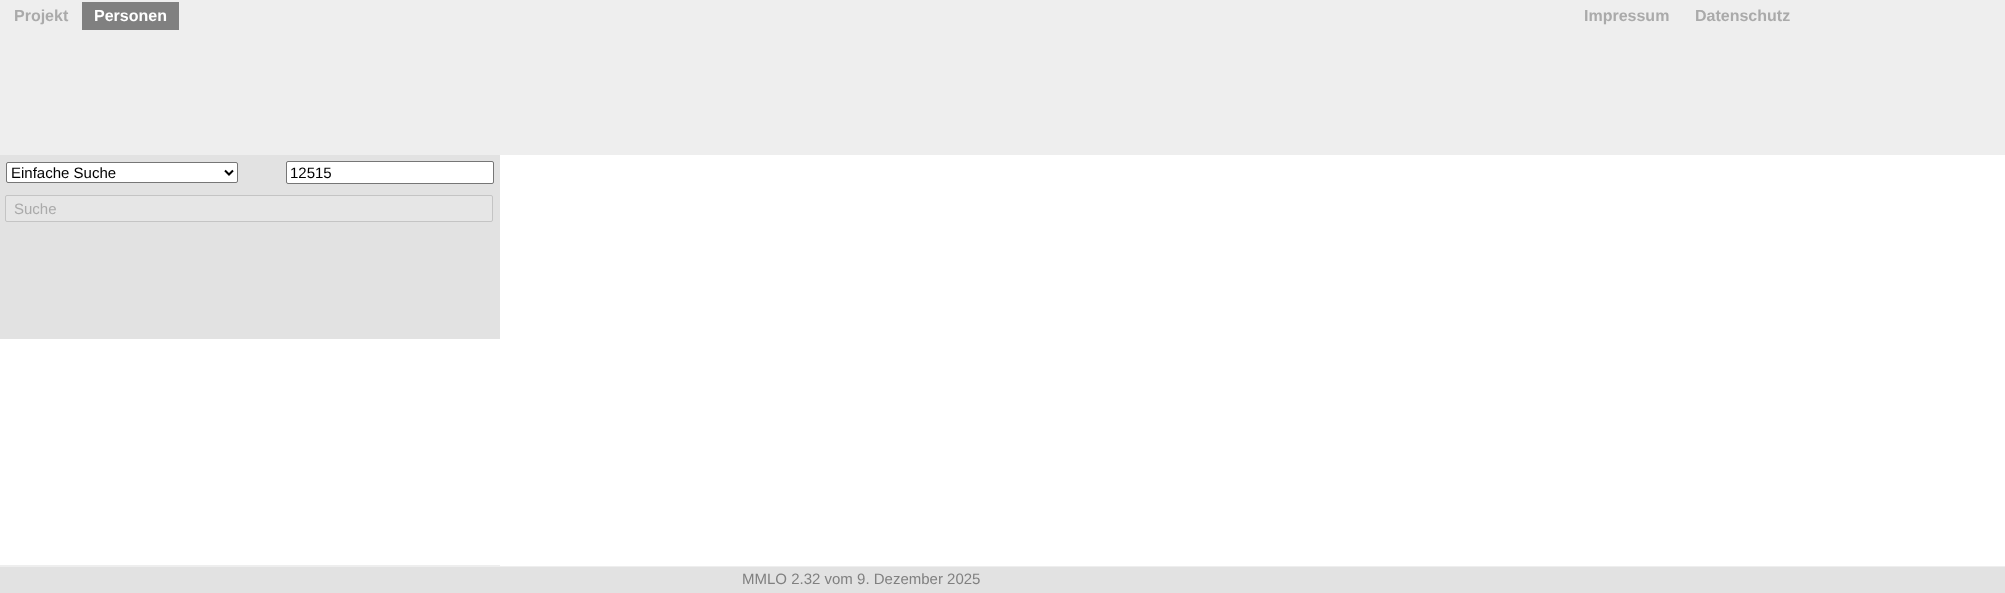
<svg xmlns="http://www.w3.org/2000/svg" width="2005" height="593">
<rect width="100%" height="100%" fill="#eee"/>
<text x="14" y="21" style="font-family:Liberation Sans;font-size:16px;font-weight:bold;fill:#aaa">Projekt</text>
<rect x="82" y="2" width="97" height="28" fill="#808080"/>
<text x="94" y="21" style="font-family:Liberation Sans;font-size:16px;font-weight:bold;fill:#fff">Personen</text>
<text x="1584" y="21" style="font-family:Liberation Sans;font-size:16px;font-weight:bold;fill:#aaa">Impressum</text>
<text x="1695" y="21" style="font-family:Liberation Sans;font-size:16px;font-weight:bold;fill:#aaa">Datenschutz</text>
<rect y="155" width="500" height="184" fill="#e2e2e2"/>
<rect x="6.5" y="162.5" width="231" height="20" rx="1.5" fill="#fff" stroke="#767676"/>
<path d="M225 170.5l4 4l4-4" fill="none" stroke="#000" stroke-width="2"/>
<text x="11" y="178" style="font-family:Liberation Sans;font-size:15px;fill:#000">Einfache Suche</text>
<rect x="286.5" y="161.5" width="207" height="22" rx="1.5" fill="#fff" stroke="#767676"/>
<text x="290" y="178" style="font-family:Liberation Sans;font-size:15px;fill:#000">12515</text>
<rect x="5.5" y="195.5" width="487" height="26" rx="1.5" fill="#e6e6e6" stroke="#c4c4c4"/>
<text x="14" y="214" style="font-family:Liberation Sans;font-size:15px;fill:#aaa">Suche</text>
<rect x="500" y="155" width="1505" height="411" fill="#fff"/>
<rect y="339" width="500" height="226" fill="#fff"/>
<rect y="567" width="2005" height="26" fill="#e2e2e2"/>
<text x="742" y="584" style="font-family:Liberation Sans;font-size:15px;fill:#808080">MMLO 2.32 vom 9. Dezember 2025</text>
</svg>
